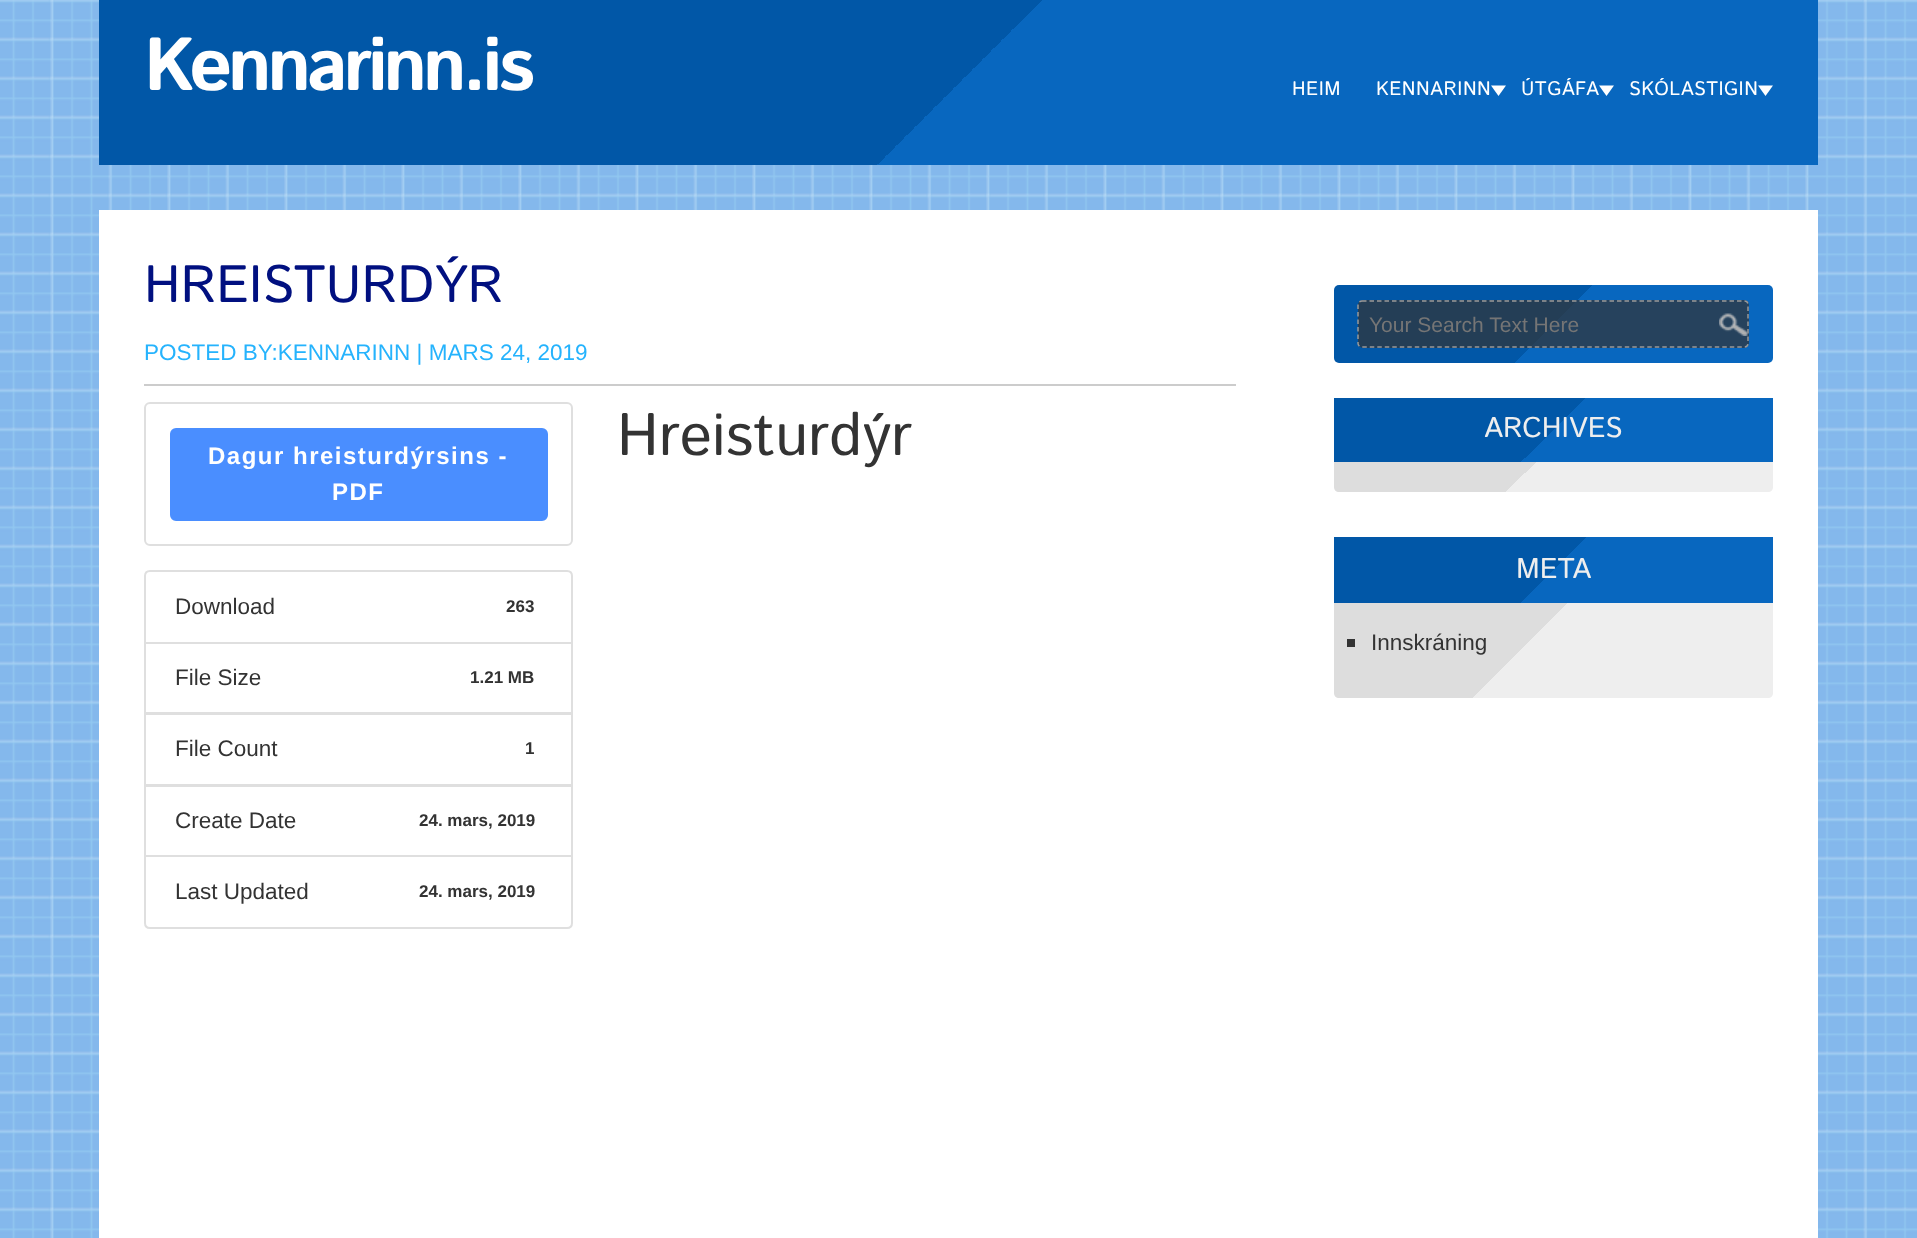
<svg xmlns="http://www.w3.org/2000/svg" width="1917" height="1238">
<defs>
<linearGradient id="g1" gradientUnits="userSpaceOnUse" x1="1430" y1="554" x2="488" y2="-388"><stop offset="0.5" stop-color="#0867bf"/><stop offset="0.5" stop-color="#0157a7"/></linearGradient>
<linearGradient id="g2" gradientUnits="userSpaceOnUse" x1="1683" y1="453" x2="1424" y2="195"><stop offset="0.5" stop-color="#0867bf"/><stop offset="0.5" stop-color="#0157a7"/></linearGradient>
<linearGradient id="g3" gradientUnits="userSpaceOnUse" x1="1687" y1="578" x2="1420" y2="311"><stop offset="0.5" stop-color="#eee"/><stop offset="0.5" stop-color="#ddd"/></linearGradient>
<linearGradient id="g4" gradientUnits="userSpaceOnUse" x1="1679" y1="556" x2="1427" y2="304"><stop offset="0.5" stop-color="#0867bf"/><stop offset="0.5" stop-color="#0157a7"/></linearGradient>
<linearGradient id="g5" gradientUnits="userSpaceOnUse" x1="1703" y1="767" x2="1403" y2="467"><stop offset="0.5" stop-color="#eee"/><stop offset="0.5" stop-color="#ddd"/></linearGradient>
<linearGradient id="g6" gradientUnits="userSpaceOnUse" x1="1680" y1="696" x2="1427" y2="444"><stop offset="0.5" stop-color="#0867bf"/><stop offset="0.5" stop-color="#0157a7"/></linearGradient>
</defs>
<rect width="100%" height="100%" fill="#fff"/>
<image x="0" y="0" width="1917" height="1238" href="media/1.png"/>
<rect x="99" width="1719" height="165" fill="url(#g1)"/>
<text x="144" y="90" style="font-family:Istok Web;font-size:75px;font-weight:bold;letter-spacing:-4.5px;fill:#fff">Kennarinn.is</text>
<text x="1292" y="95" style="font-family:Istok Web;font-size:19.5px;letter-spacing:0.5px;fill:#fff">HEIM</text>
<text x="1376" y="95" style="font-family:Istok Web;font-size:19.5px;letter-spacing:0.5px;fill:#fff">KENNARINN</text>
<path d="M1491 85.5h15l-7.5 10.5z" fill="#fff"/>
<text x="1521" y="95" style="font-family:Istok Web;font-size:19.5px;letter-spacing:0.5px;fill:#fff">ÚTGÁFA</text>
<path d="M1599 85.5h15l-7.5 10.5z" fill="#fff"/>
<text x="1629" y="95" style="font-family:Istok Web;font-size:19.5px;letter-spacing:0.5px;fill:#fff">SKÓLASTIGIN</text>
<path d="M1758 85.5h15l-7.5 10.5z" fill="#fff"/>
<rect x="99" y="210" width="1719" height="1028" fill="#fff"/>
<text x="144" y="302" style="font-family:Istok Web;font-size:52.5px;fill:#011080">HREISTURDÝR</text>
<text x="144" y="360" style="font-family:Liberation Sans;font-size:22.5px;fill:#25b3fd">POSTED BY:KENNARINN | MARS 24, 2019</text>
<rect x="144" y="384" width="1092" height="2" fill="#ccc"/>
<text x="617" y="455" style="font-family:Istok Web;font-size:60px;fill:#333">Hreisturdýr</text>
<rect x="145" y="403" width="427" height="142" rx="5" fill="none" stroke="#dfdfdf" stroke-width="2"/>
<rect x="171" y="429" width="376" height="91" rx="5" fill="#4a8eff" stroke="#4a8eff" stroke-width="2"/>
<text x="208" y="464" style="font-family:Liberation Sans;font-size:24px;font-weight:bold;letter-spacing:1.5px;fill:#fff">Dagur hreisturdýrsins -</text>
<text x="332" y="500" style="font-family:Liberation Sans;font-size:24px;font-weight:bold;letter-spacing:1.5px;fill:#fff">PDF</text>
<path d="M150 571h417c3 0 5 2 5 5v67h-427v-67c0-3 2-5 5-5z" fill="none" stroke="#dfdfdf" stroke-width="2"/>
<text x="175" y="614" style="font-family:Liberation Sans;font-size:22.5px;fill:#333">Download</text>
<text x="506" y="612" style="font-family:Liberation Sans;font-size:17px;font-weight:bold;fill:#333">263</text>
<rect x="145" y="643" width="427" height="70" fill="none" stroke="#dfdfdf" stroke-width="2"/>
<text x="175" y="685" style="font-family:Liberation Sans;font-size:22.5px;fill:#333">File Size</text>
<text x="470" y="683" style="font-family:Liberation Sans;font-size:17px;font-weight:bold;fill:#333">1.21 MB</text>
<rect x="145" y="714" width="427" height="71" fill="none" stroke="#dfdfdf" stroke-width="2"/>
<text x="175" y="756" style="font-family:Liberation Sans;font-size:22.5px;fill:#333">File Count</text>
<text x="525" y="754" style="font-family:Liberation Sans;font-size:17px;font-weight:bold;fill:#333">1</text>
<rect x="145" y="786" width="427" height="70" fill="none" stroke="#dfdfdf" stroke-width="2"/>
<text x="175" y="828" style="font-family:Liberation Sans;font-size:22.5px;fill:#333">Create Date</text>
<text x="419" y="826" style="font-family:Liberation Sans;font-size:17px;font-weight:bold;fill:#333">24. mars, 2019</text>
<path d="M145 856h427v67c0 3-2 5-5 5h-417c-3 0-5-2-5-5z" fill="#fff" stroke="#dfdfdf" stroke-width="2"/>
<text x="175" y="899" style="font-family:Liberation Sans;font-size:22.5px;fill:#333">Last Updated</text>
<text x="419" y="897" style="font-family:Liberation Sans;font-size:17px;font-weight:bold;fill:#333">24. mars, 2019</text>
<rect x="1334" y="285" width="439" height="78" rx="5" fill="url(#g2)"/>
<rect x="1358" y="300" width="391" height="48" rx="5" fill="#333333b3"/>
<image x="1719" y="313" width="29" height="23" href="media/2.png"/>
<path d="M1362 301h382.5c2 0 3.5 1.5 3.5 3.5v39c0 2-1.5 3.5-3.5 3.5h-382.5c-2 0-4-1.5-4-3.5v-39c0-2 2-3.5 4-3.5z" fill="none" stroke="#999" stroke-width="1.5" stroke-dasharray="4.5 3"/>
<text x="1369" y="332" style="font-family:Liberation Sans;font-size:21px;fill:#757575">Your Search Text Here</text>
<path d="M1334 398h439v89c0 3-2 5-5 5h-429c-3 0-5-2-5-5z" fill="url(#g3)"/>
<rect x="1334" y="398" width="439" height="64" fill="url(#g4)"/>
<text x="1484" y="437" style="font-family:Istok Web;font-size:28.5px;fill:#eee">ARCHIVES</text>
<path d="M1334 537h439v156c0 3-2 5-5 5h-429c-3 0-5-2-5-5z" fill="url(#g5)"/>
<rect x="1334" y="537" width="439" height="66" fill="url(#g6)"/>
<text x="1516" y="578" style="font-family:Istok Web;font-size:28.5px;fill:#eee">META</text>
<rect x="1347" y="639" width="8" height="8" fill="#333"/>
<text x="1371" y="650" style="font-family:Liberation Sans;font-size:22.5px;fill:#333">Innskráning</text>
</svg>
